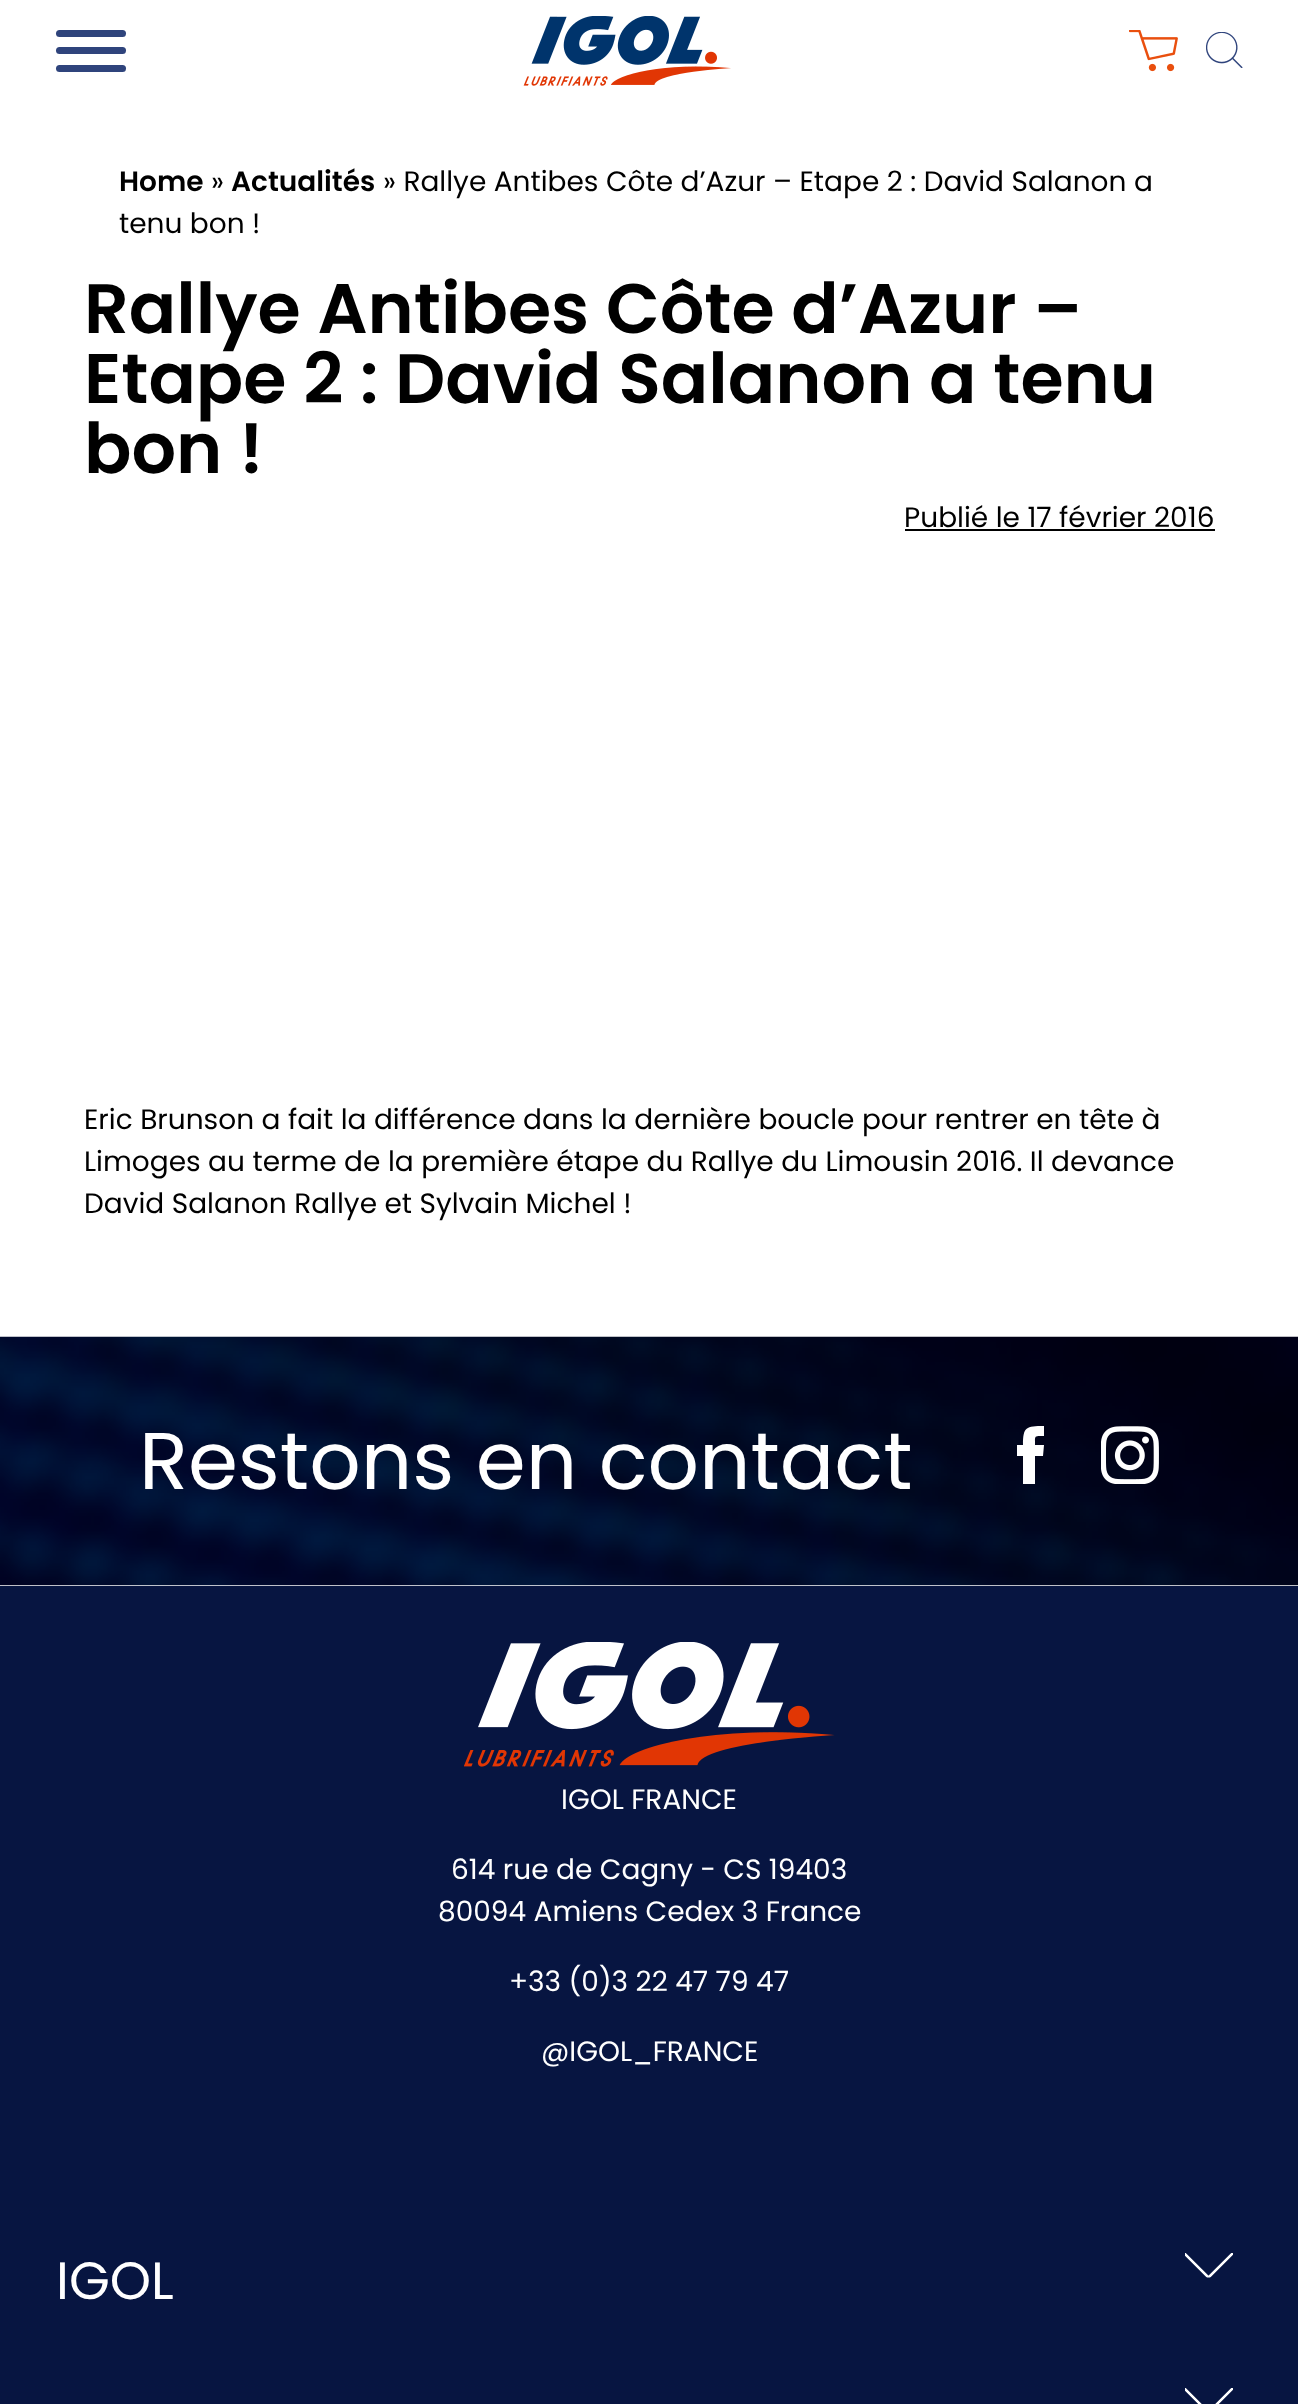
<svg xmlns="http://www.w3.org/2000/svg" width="1298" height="2404">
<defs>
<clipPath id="clip1"><rect x="1017" y="1426" width="28" height="58"/></clipPath>
<clipPath id="clip2"><path d="M1234 2241v49h-49v-49z"/></clipPath>
<clipPath id="clip3"><path d="M1233 2253v24.5h-49v-24.5z"/></clipPath>
<clipPath id="clip4"><path d="M1234 2375.5v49h-49v-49z"/></clipPath>
<clipPath id="clip5"><path d="M1233 2388v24.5h-49v-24.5z"/></clipPath>
</defs>
<rect width="100%" height="100%" fill="#fff"/>
<rect x="56" y="47" width="70" height="7" rx="3.5" fill="#2f447c"/>
<rect x="56" y="30" width="70" height="7" rx="3.5" fill="#2f447c"/>
<rect x="56" y="65" width="70" height="7" rx="3.5" fill="#2f447c"/>
<image x="523" y="16" width="208" height="70" href="media/1.png"/>
<image x="1129" y="30" width="49" height="42" href="media/2.png"/>
<image x="1206" y="32" width="37" height="36" href="media/3.png"/>
<text x="119" y="191" style="font-family:Poppins;font-size:28px;font-weight:600;fill:#000">Home</text>
<text x="211" y="191" style="font-family:Poppins;font-size:28px;fill:#000">»</text>
<text x="231" y="191" style="font-family:Poppins;font-size:28px;font-weight:600;fill:#000">Actualités</text>
<text x="383" y="191" style="font-family:Poppins;font-size:28px;fill:#000">» Rallye Antibes Côte d’Azur – Etape 2 : David Salanon a</text>
<text x="119" y="233" style="font-family:Poppins;font-size:28px;fill:#000">tenu bon !</text>
<text x="84" y="333" style="font-family:Poppins;font-size:70px;font-weight:600;fill:#000">Rallye Antibes Côte d’Azur –</text>
<text x="84" y="403" style="font-family:Poppins;font-size:70px;font-weight:600;fill:#000">Etape 2 : David Salanon a tenu</text>
<text x="84" y="473" style="font-family:Poppins;font-size:70px;font-weight:600;fill:#000">bon !</text>
<text x="904" y="527" style="font-family:Poppins;font-size:28px;fill:#000">Publié le 17 février 2016</text>
<rect x="905" y="529" width="310" height="2" fill="#000"/>
<text x="84" y="1129" style="font-family:Poppins;font-size:28px;fill:#000">Eric Brunson a fait la différence dans la dernière boucle pour rentrer en tête à</text>
<text x="84" y="1171" style="font-family:Poppins;font-size:28px;fill:#000">Limoges au terme de la première étape du Rallye du Limousin 2016. Il devance</text>
<text x="84" y="1213" style="font-family:Poppins;font-size:28px;fill:#000">David Salanon Rallye et Sylvain Michel !</text>
<image x="0" y="1336" width="1298" height="250" href="media/4.png"/>
<text x="139" y="1489" style="font-family:Poppins;font-size:80.5px;fill:#fff">Restons en contact</text>
<g clip-path="url(#clip1)">
<path d="M1043 1456h-8v30h-12v-30h-6v-11h6c0-18 3-19 21-19v10c-10 0-9-1-9 9h9z" fill="#fff"/>
</g>
<image x="1101" y="1426" width="58" height="58" href="media/5.png"/>
<rect y="1586" width="1298" height="818" fill="#071541"/>
<image x="464" y="1642" width="371" height="125" href="media/6.png"/>
<text x="561" y="1809" style="font-family:Poppins;font-size:28px;fill:#fff">IGOL FRANCE</text>
<text x="451" y="1879" style="font-family:Poppins;font-size:28px;fill:#fff">614 rue de Cagny - CS 19403</text>
<text x="438" y="1921" style="font-family:Poppins;font-size:28px;fill:#fff">80094 Amiens Cedex 3 France</text>
<text x="509" y="1991" style="font-family:Poppins;font-size:28px;fill:#fff">+33 (0)3 22 47 79 47</text>
<text x="541" y="2061" style="font-family:Poppins;font-size:28px;fill:#fff">@IGOL_FRANCE</text>
<text x="56" y="2299" style="font-family:Poppins;font-size:52.5px;fill:#fff">IGOL</text>
<g clip-path="url(#clip2)">
<g clip-path="url(#clip3)">
<path d="M1233 2253l-24.5 24.5l-24.5-24.5" fill="none" stroke="#fff" stroke-width="2.5"/>
</g>
</g>
<g clip-path="url(#clip4)">
<g clip-path="url(#clip5)">
<path d="M1233 2388l-24.5 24.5l-24.5-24.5" fill="none" stroke="#fff" stroke-width="2.5"/>
</g>
</g>
</svg>
